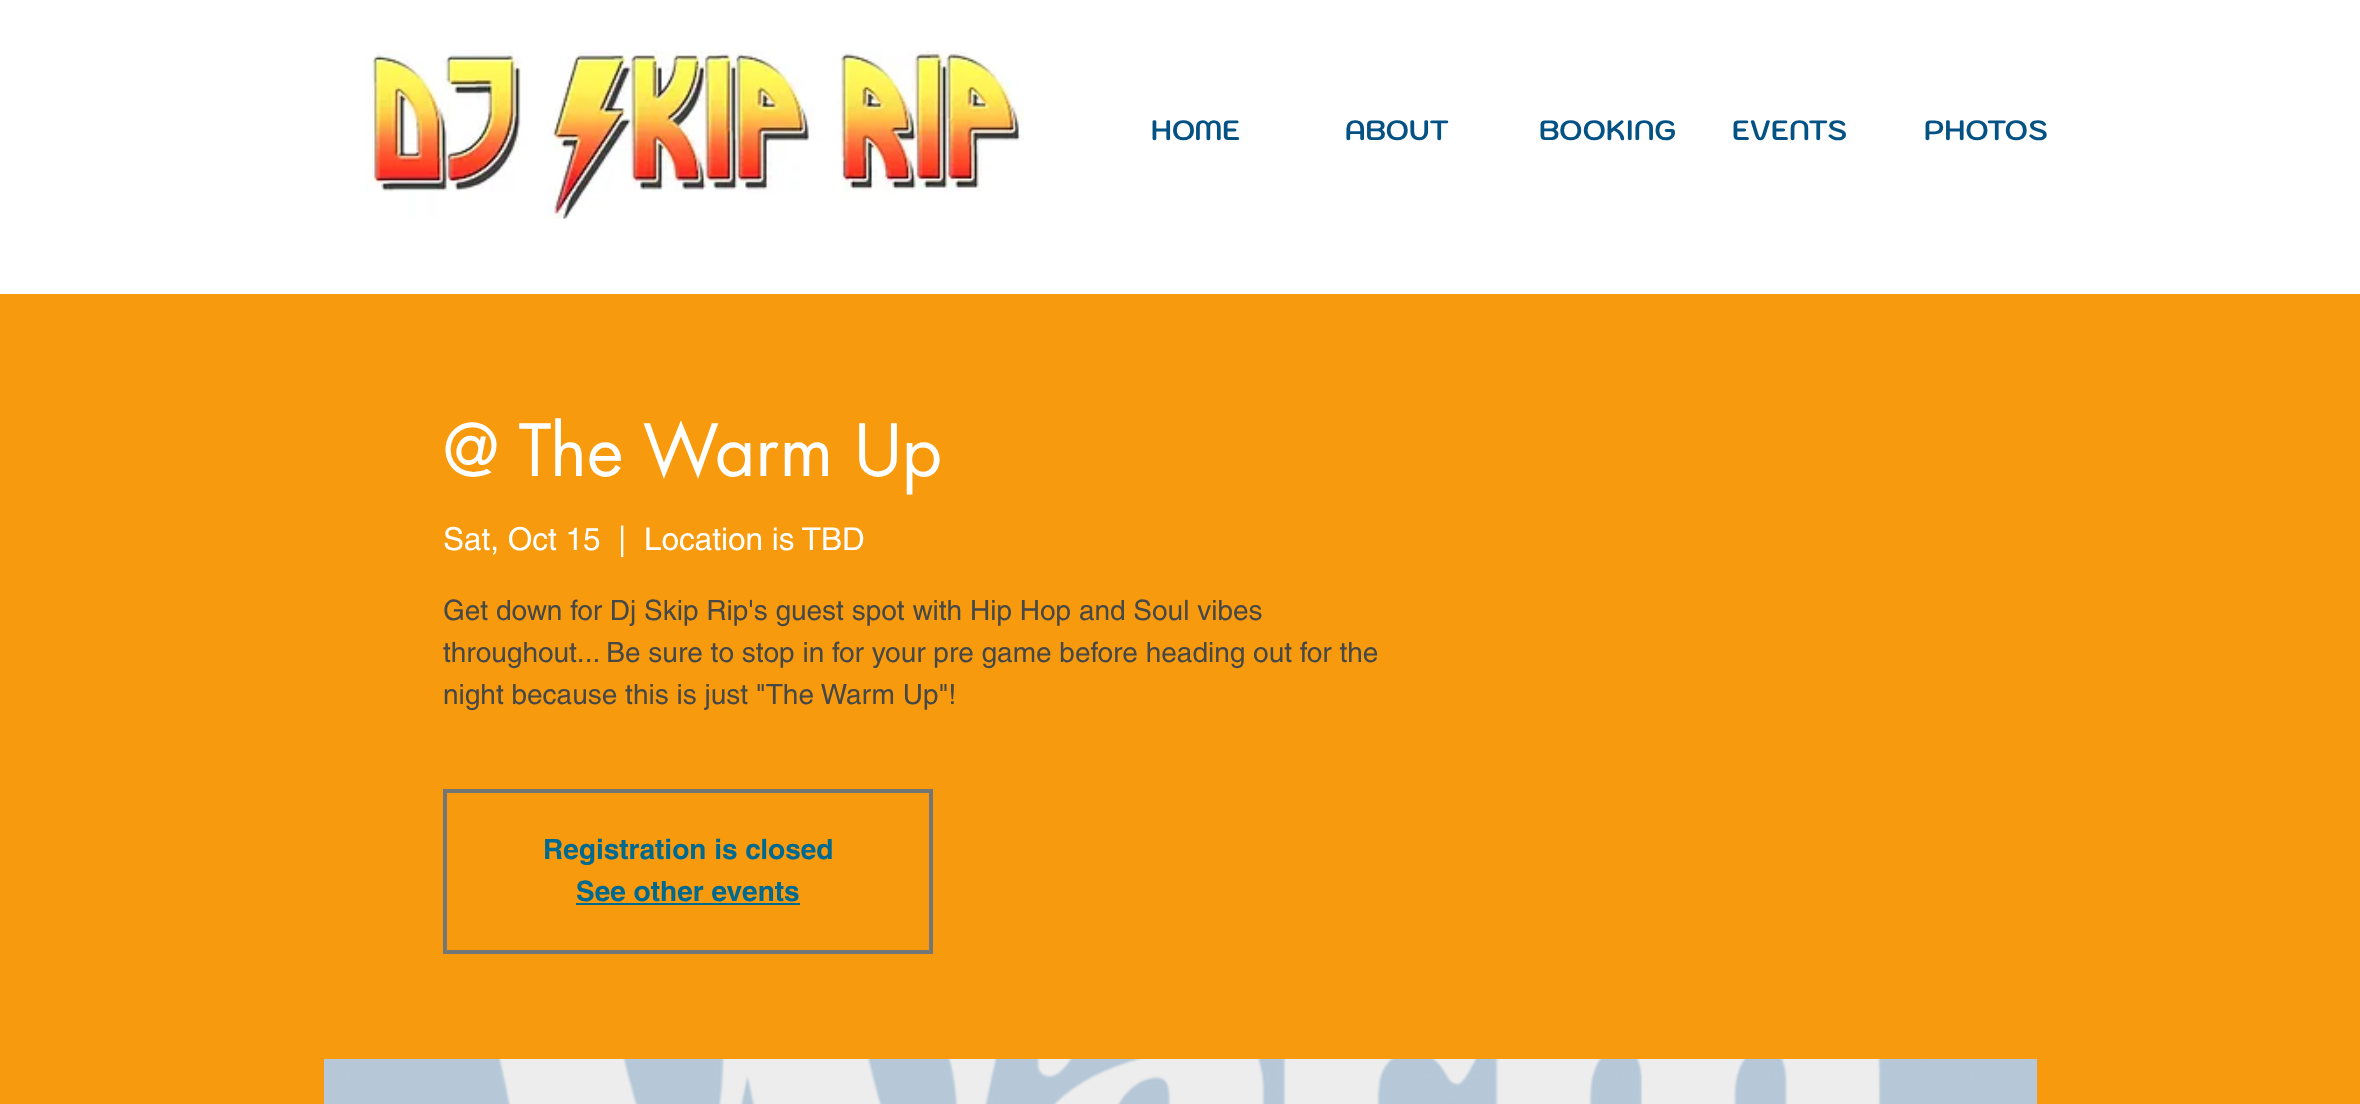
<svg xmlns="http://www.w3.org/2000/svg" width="2360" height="1104">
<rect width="100%" height="100%" fill="#fff"/>
<image x="365" y="50" width="659" height="169" href="media/1.png"/>
<text x="1151" y="140" style="font-family:Kodchasan;font-size:28px;font-weight:bold;fill:#045184">HOME</text>
<text x="1345" y="140" style="font-family:Kodchasan;font-size:28px;font-weight:bold;fill:#045184">ABOUT</text>
<text x="1539" y="140" style="font-family:Kodchasan;font-size:28px;font-weight:bold;fill:#045184">BOOKING</text>
<text x="1732" y="140" style="font-family:Kodchasan;font-size:28px;font-weight:bold;fill:#045184">EVENTS</text>
<text x="1924" y="140" style="font-family:Kodchasan;font-size:28px;font-weight:bold;fill:#045184">PHOTOS</text>
<rect y="294" width="2360" height="810" fill="#f79a0e"/>
<text x="443" y="476" style="font-family:futura;font-size:70px;fill:#fff">@ The Warm Up</text>
<text x="443" y="550" style="font-family:helvetica;font-size:31.5px;fill:#fff">Sat, Oct 15</text>
<text x="618" y="550" style="font-family:helvetica;font-size:31.5px;fill:#fff">|</text>
<text x="644" y="550" style="font-family:helvetica;font-size:31.5px;fill:#fff">Location is TBD</text>
<text x="443" y="620" style="font-family:helvetica;font-size:28px;fill:#464747">Get down for Dj Skip Rip's guest spot with Hip Hop and Soul vibes</text>
<text x="443" y="662" style="font-family:helvetica;font-size:28px;fill:#464747">throughout... Be sure to stop in for your pre game before heading out for the</text>
<text x="443" y="704" style="font-family:helvetica;font-size:28px;fill:#464747">night because this is just "The Warm Up"!</text>
<rect x="445" y="791" width="486" height="161" fill="none" stroke="#747575" stroke-width="4"/>
<text x="543" y="859" style="font-family:helvetica;font-size:28px;font-weight:bold;fill:#006990">Registration is closed</text>
<text x="576" y="901" style="font-family:helvetica;font-size:28px;font-weight:bold;fill:#006990">See other events</text>
<rect x="576" y="903" width="224" height="2" fill="#006990"/>
<rect x="324" y="1059" width="1713" height="45" fill="#e3e3e3"/>
<image x="324" y="1059" width="1713" height="45" href="media/2.png"/>
</svg>
